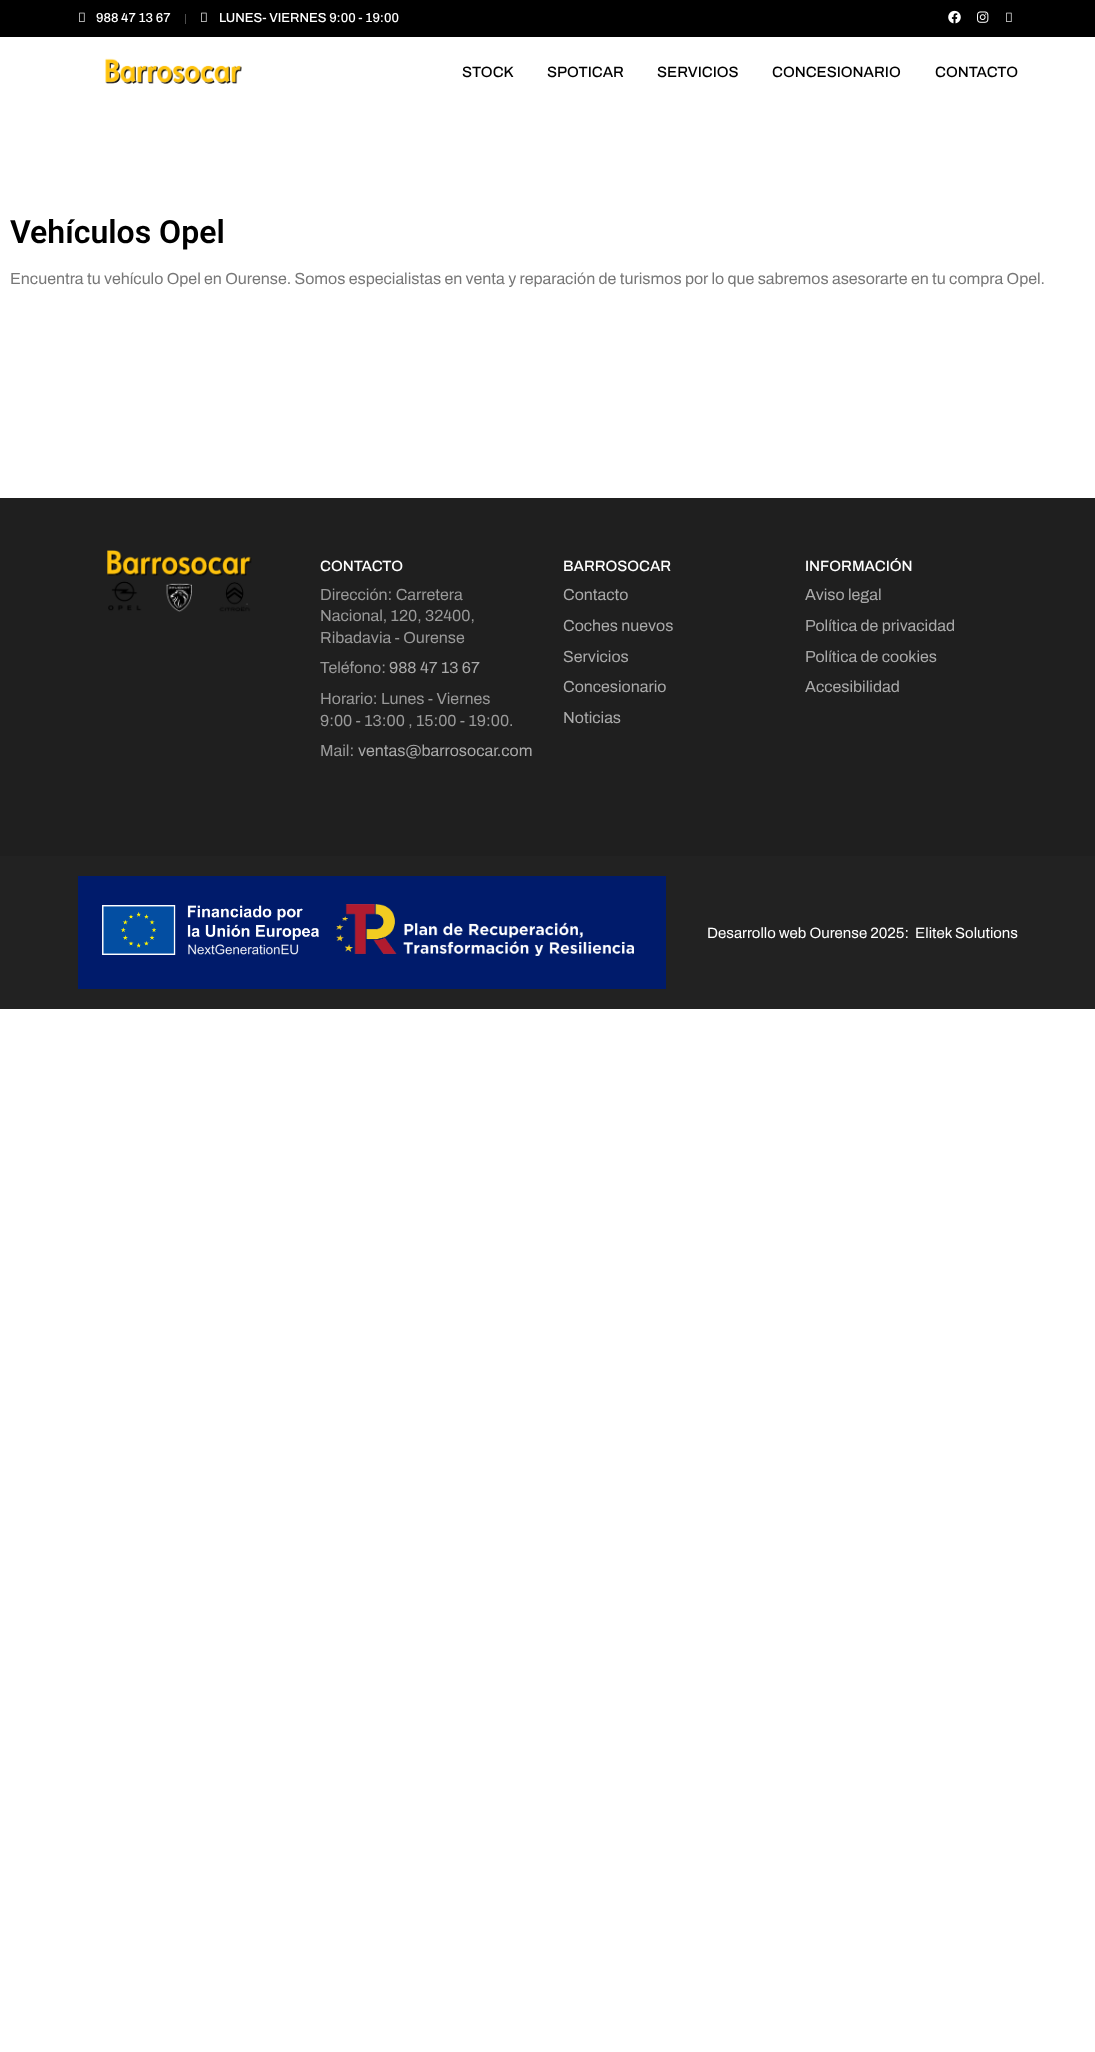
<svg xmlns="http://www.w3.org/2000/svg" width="1095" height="2052">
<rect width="100%" height="100%" fill="#fff"/>
<rect width="1095" height="37" fill="#000"/>
<image x="79" y="12" width="6" height="10" href="media/1.png"/>
<text x="96" y="22" style="font-family:Archivo;font-size:13px;font-weight:500;fill:#fff">988 47 13 67</text>
<rect x="185" y="14" width="1" height="10" fill="#4d4d4d"/>
<image x="201" y="12" width="6" height="10" href="media/1.png"/>
<text x="219" y="22" style="font-family:Archivo;font-size:13px;font-weight:500;fill:#fff">LUNES- VIERNES 9:00 - 19:00</text>
<image x="948" y="10" width="13" height="14" href="media/2.png"/>
<image x="977" y="11" width="12" height="12" href="media/3.png"/>
<image x="1006" y="12" width="6" height="10" href="media/1.png"/>
<image x="105" y="58" width="137" height="26" href="media/4.png"/>
<text x="462" y="77" style="font-family:Archivo;font-size:15px;font-weight:500;fill:#000">STOCK</text>
<text x="547" y="77" style="font-family:Archivo;font-size:15px;font-weight:500;fill:#000">SPOTICAR</text>
<text x="657" y="77" style="font-family:Archivo;font-size:15px;font-weight:500;fill:#000">SERVICIOS</text>
<text x="772" y="77" style="font-family:Archivo;font-size:15px;font-weight:500;fill:#000">CONCESIONARIO</text>
<text x="935" y="77" style="font-family:Archivo;font-size:15px;font-weight:500;fill:#000">CONTACTO</text>
<text x="10" y="243" style="font-family:Roboto;font-size:32px;font-weight:600;fill:#000">Vehículos Opel</text>
<text x="10" y="284" style="font-family:Archivo;font-size:16px;fill:#777">Encuentra tu vehículo Opel en Ourense. Somos especialistas en venta y reparación de turismos por lo que sabremos asesorarte en tu compra Opel.</text>
<rect y="498" width="1095" height="358" fill="#1f1f1f"/>
<image x="107" y="550" width="145" height="62" href="media/5.png"/>
<text x="320" y="571" style="font-family:Archivo;font-size:15px;font-weight:500;fill:#fff">CONTACTO</text>
<text x="320" y="600" style="font-family:Archivo;font-size:16px;fill:#999">Dirección: Carretera</text>
<text x="320" y="621" style="font-family:Archivo;font-size:16px;fill:#999">Nacional, 120, 32400,</text>
<text x="320" y="643" style="font-family:Archivo;font-size:16px;fill:#999">Ribadavia - Ourense</text>
<text x="320" y="673" style="font-family:Archivo;font-size:16px;fill:#999">Teléfono:</text>
<text x="389" y="673" style="font-family:Archivo;font-size:16px;fill:#aaa">988 47 13 67</text>
<text x="320" y="704" style="font-family:Archivo;font-size:16px;fill:#999">Horario: Lunes - Viernes</text>
<text x="320" y="726" style="font-family:Archivo;font-size:16px;fill:#999">9:00 - 13:00 , 15:00 - 19:00.</text>
<text x="320" y="756" style="font-family:Archivo;font-size:16px;fill:#999">Mail:</text>
<text x="358" y="756" style="font-family:Archivo;font-size:16px;fill:#aaa">ventas@barrosocar.com</text>
<text x="563" y="571" style="font-family:Archivo;font-size:15px;font-weight:500;fill:#fff">BARROSOCAR</text>
<text x="563" y="600" style="font-family:Archivo;font-size:16px;fill:#aaa">Contacto</text>
<text x="563" y="631" style="font-family:Archivo;font-size:16px;fill:#aaa">Coches nuevos</text>
<text x="563" y="662" style="font-family:Archivo;font-size:16px;fill:#aaa">Servicios</text>
<text x="563" y="692" style="font-family:Archivo;font-size:16px;fill:#aaa">Concesionario</text>
<text x="563" y="723" style="font-family:Archivo;font-size:16px;fill:#aaa">Noticias</text>
<text x="805" y="571" style="font-family:Archivo;font-size:15px;font-weight:500;fill:#fff">INFORMACIÓN</text>
<text x="805" y="600" style="font-family:Archivo;font-size:16px;fill:#aaa">Aviso legal</text>
<text x="805" y="631" style="font-family:Archivo;font-size:16px;fill:#aaa">Política de privacidad</text>
<text x="805" y="662" style="font-family:Archivo;font-size:16px;fill:#aaa">Política de cookies</text>
<text x="805" y="692" style="font-family:Archivo;font-size:16px;fill:#aaa">Accesibilidad</text>
<rect y="856" width="1095" height="153" fill="#222"/>
<image x="78" y="876" width="588" height="113" href="media/6.png"/>
<text x="707" y="938" style="font-family:Archivo;font-size:15px;fill:#fff" xml:space="preserve">Desarrollo web Ourense 2025:  Elitek Solutions</text>
</svg>
